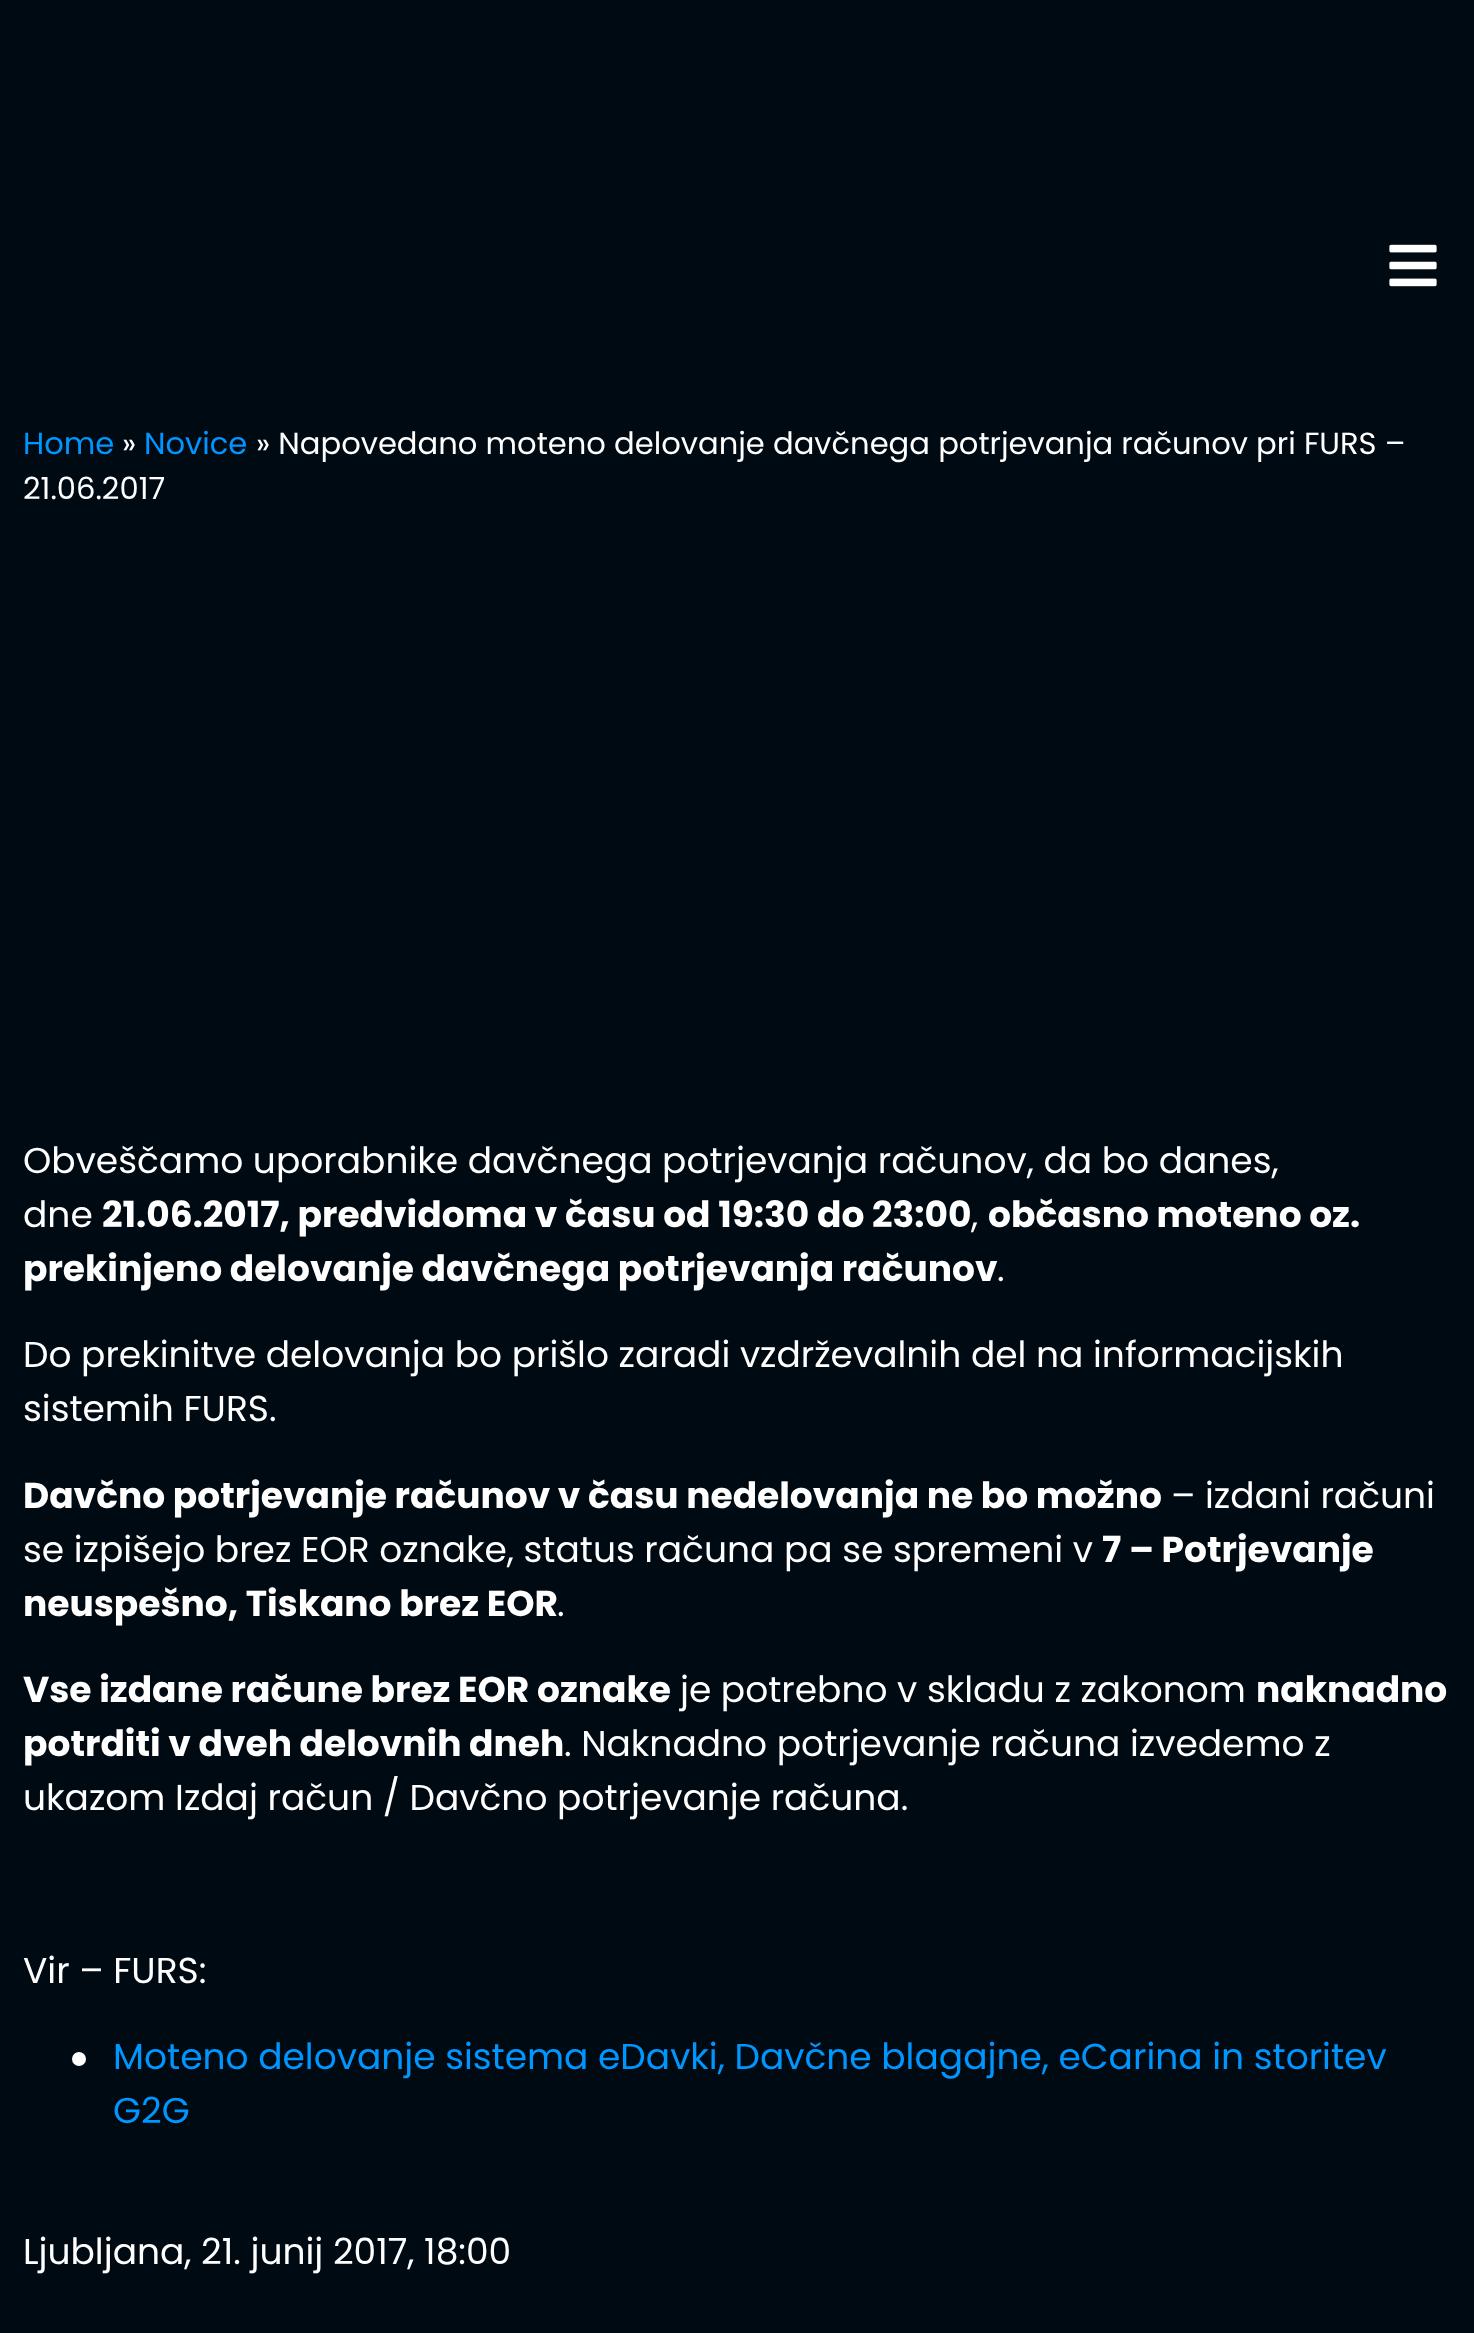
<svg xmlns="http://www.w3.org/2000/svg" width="1474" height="2333">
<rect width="100%" height="100%" fill="#000a12"/>
<image x="1389" y="244" width="48" height="43" href="media/1.png"/>
<text x="23" y="454" style="font-family:Poppins;font-size:30.6px;fill:#0096ff">Home</text>
<text x="122" y="454" style="font-family:Poppins;font-size:30.6px;fill:#fff">»</text>
<text x="144" y="454" style="font-family:Poppins;font-size:30.6px;fill:#0096ff">Novice</text>
<text x="256" y="454" style="font-family:Poppins;font-size:30.6px;fill:#fff">» Napovedano moteno delovanje davčnega potrjevanja računov pri FURS –</text>
<text x="23" y="499" style="font-family:Poppins;font-size:30.6px;fill:#fff">21.06.2017</text>
<text x="23" y="1173" style="font-family:Poppins;font-size:36px;fill:#fff">Obveščamo uporabnike davčnega potrjevanja računov, da bo danes,</text>
<text x="23" y="1227" style="font-family:Poppins;font-size:36px;fill:#fff">dne</text>
<text x="102" y="1227" style="font-family:Poppins;font-size:36px;font-weight:bold;fill:#fff">21.06.2017, predvidoma v času od 19:30 do 23:00</text>
<text x="971" y="1227" style="font-family:Poppins;font-size:36px;fill:#fff">,</text>
<text x="988" y="1227" style="font-family:Poppins;font-size:36px;font-weight:bold;fill:#fff">občasno moteno oz.</text>
<text x="23" y="1281" style="font-family:Poppins;font-size:36px;font-weight:bold;fill:#fff">prekinjeno delovanje davčnega potrjevanja računov</text>
<text x="997" y="1281" style="font-family:Poppins;font-size:36px;fill:#fff">.</text>
<text x="23" y="1367" style="font-family:Poppins;font-size:36px;fill:#fff">Do prekinitve delovanja bo prišlo zaradi vzdrževalnih del na informacijskih</text>
<text x="23" y="1421" style="font-family:Poppins;font-size:36px;fill:#fff">sistemih FURS.</text>
<text x="23" y="1508" style="font-family:Poppins;font-size:36px;font-weight:bold;fill:#fff">Davčno potrjevanje računov v času nedelovanja ne bo možno</text>
<text x="1171" y="1508" style="font-family:Poppins;font-size:36px;fill:#fff">– izdani računi</text>
<text x="23" y="1562" style="font-family:Poppins;font-size:36px;fill:#fff">se izpišejo brez EOR oznake, status računa pa se spremeni v</text>
<text x="1102" y="1562" style="font-family:Poppins;font-size:36px;font-weight:bold;fill:#fff">7 – Potrjevanje</text>
<text x="23" y="1616" style="font-family:Poppins;font-size:36px;font-weight:bold;fill:#fff">neuspešno, Tiskano brez EOR</text>
<text x="557" y="1616" style="font-family:Poppins;font-size:36px;fill:#fff">.</text>
<text x="23" y="1702" style="font-family:Poppins;font-size:36px;font-weight:bold;fill:#fff">Vse izdane račune brez EOR oznake</text>
<text x="680" y="1702" style="font-family:Poppins;font-size:36px;fill:#fff">je potrebno v skladu z zakonom</text>
<text x="1256" y="1702" style="font-family:Poppins;font-size:36px;font-weight:bold;fill:#fff">naknadno</text>
<text x="23" y="1756" style="font-family:Poppins;font-size:36px;font-weight:bold;fill:#fff">potrditi v dveh delovnih dneh</text>
<text x="564" y="1756" style="font-family:Poppins;font-size:36px;fill:#fff">. Naknadno potrjevanje računa izvedemo z</text>
<text x="23" y="1810" style="font-family:Poppins;font-size:36px;fill:#fff">ukazom Izdaj račun / Davčno potrjevanje računa.</text>
<text x="23" y="1983" style="font-family:Poppins;font-size:36px;fill:#fff">Vir – FURS:</text>
<circle cx="79" cy="2059" r="7" fill="#fff"/>
<text x="113" y="2069" style="font-family:Poppins;font-size:36px;fill:#0096ff">Moteno delovanje sistema eDavki, Davčne blagajne, eCarina in storitev</text>
<text x="113" y="2123" style="font-family:Poppins;font-size:36px;fill:#0096ff">G2G</text>
<text x="23" y="2264" style="font-family:Poppins;font-size:36px;fill:#fff">Ljubljana, 21. junij 2017, 18:00</text>
</svg>
